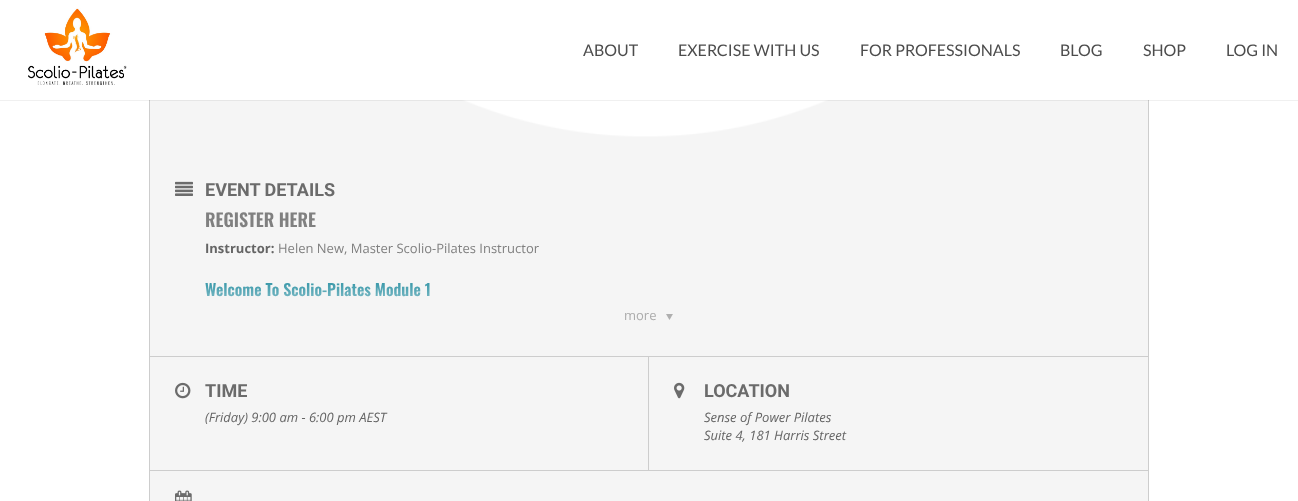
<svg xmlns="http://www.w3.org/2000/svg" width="1298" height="501">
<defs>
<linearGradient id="g1" gradientUnits="userSpaceOnUse" x1="649" y1="271" x2="649" y2="331"><stop offset="0" stop-color="#f5f5f5" stop-opacity="0"/><stop offset="0.01" stop-color="#f5f5f5" stop-opacity="0.01"/><stop offset="1" stop-color="#f5f5f5"/></linearGradient>
</defs>
<rect width="100%" height="100%" fill="#fff"/>
<path d="M1147-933c1 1 1 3 1 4v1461c0 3-2 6-5 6c3 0 6-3 6-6v-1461c0-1-1-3-2-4z" fill="#cdcdcd"/>
<path d="M149-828v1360c0 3 3 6 6 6h988c3 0 5-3 5-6v-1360z" fill="#f5f5f5"/>
<path d="M149-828v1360l1 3v-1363z" fill="#cdcdcd"/>
<image x="462" y="100" width="367" height="37" href="media/2.png"/>
<rect y="100" width="1298" height="1" fill="#0000000f"/>
<rect x="149" width="1000" height="100" fill="#fff"/>
<image x="28" y="8" width="99" height="77" href="media/1.png"/>
<text x="583" y="56" style="font-family:Lato;font-size:16px;fill:#4c4c4c">ABOUT</text>
<text x="678" y="56" style="font-family:Lato;font-size:16px;fill:#4c4c4c">EXERCISE WITH US</text>
<text x="860" y="56" style="font-family:Lato;font-size:16px;fill:#4c4c4c">FOR PROFESSIONALS</text>
<text x="1060" y="56" style="font-family:Lato;font-size:16px;fill:#4c4c4c">BLOG</text>
<text x="1143" y="56" style="font-family:Lato;font-size:16px;fill:#4c4c4c">SHOP</text>
<text x="1226" y="56" style="font-family:Lato;font-size:16px;fill:#4c4c4c">LOG IN</text>
<rect x="150" y="356" width="998" height="1" fill="#cdcdcd"/>
<image x="175" y="181" width="18" height="15" href="media/3.png"/>
<text x="205" y="196" style="font-family:Roboto;font-size:18px;font-weight:bold;fill:#6b6b6b">EVENT DETAILS</text>
<text x="205" y="227" style="font-family:Oswald;font-size:18px;font-weight:600;fill:#808080">REGISTER HERE</text>
<text x="205" y="253" style="font-family:Open Sans;font-size:13px;font-weight:bold;fill:#656565">Instructor:</text>
<text x="278" y="253" style="font-family:Open Sans;font-size:13px;fill:#808080">Helen New, Master Scolio-Pilates Instructor</text>
<text x="205" y="296" style="font-family:Oswald;font-size:16px;font-weight:600;fill:#0e8398">Welcome To Scolio-Pilates Module 1</text>
<rect x="205" y="282" width="225" height="15" fill="url(#g1)"/>
<text x="624" y="320" style="font-family:Open Sans;font-size:13px;fill:#acacac">more</text>
<image x="666" y="314" width="7" height="6" href="media/4.png"/>
<rect x="150" y="470" width="998" height="1" fill="#cdcdcd"/>
<rect x="648" y="357" width="1" height="113" fill="#cdcdcd"/>
<image x="175" y="382" width="16" height="17" href="media/5.png"/>
<text x="205" y="397" style="font-family:Roboto;font-size:18px;font-weight:bold;fill:#6b6b6b">TIME</text>
<text x="205" y="422" style="font-family:Open Sans;font-size:13px;font-style:italic;fill:#656565">(Friday) 9:00 am - 6:00 pm AEST</text>
<image x="674" y="382" width="11" height="17" href="media/6.png"/>
<text x="704" y="397" style="font-family:Roboto;font-size:18px;font-weight:bold;fill:#6b6b6b">LOCATION</text>
<text x="704" y="422" style="font-family:Open Sans;font-size:13px;font-style:italic;fill:#656565">Sense of Power Pilates</text>
<text x="704" y="440" style="font-family:Open Sans;font-size:13px;font-style:italic;fill:#656565">Suite 4, 181 Harris Street</text>
<image x="175" y="490" width="17" height="11" href="media/7.png"/>
</svg>
